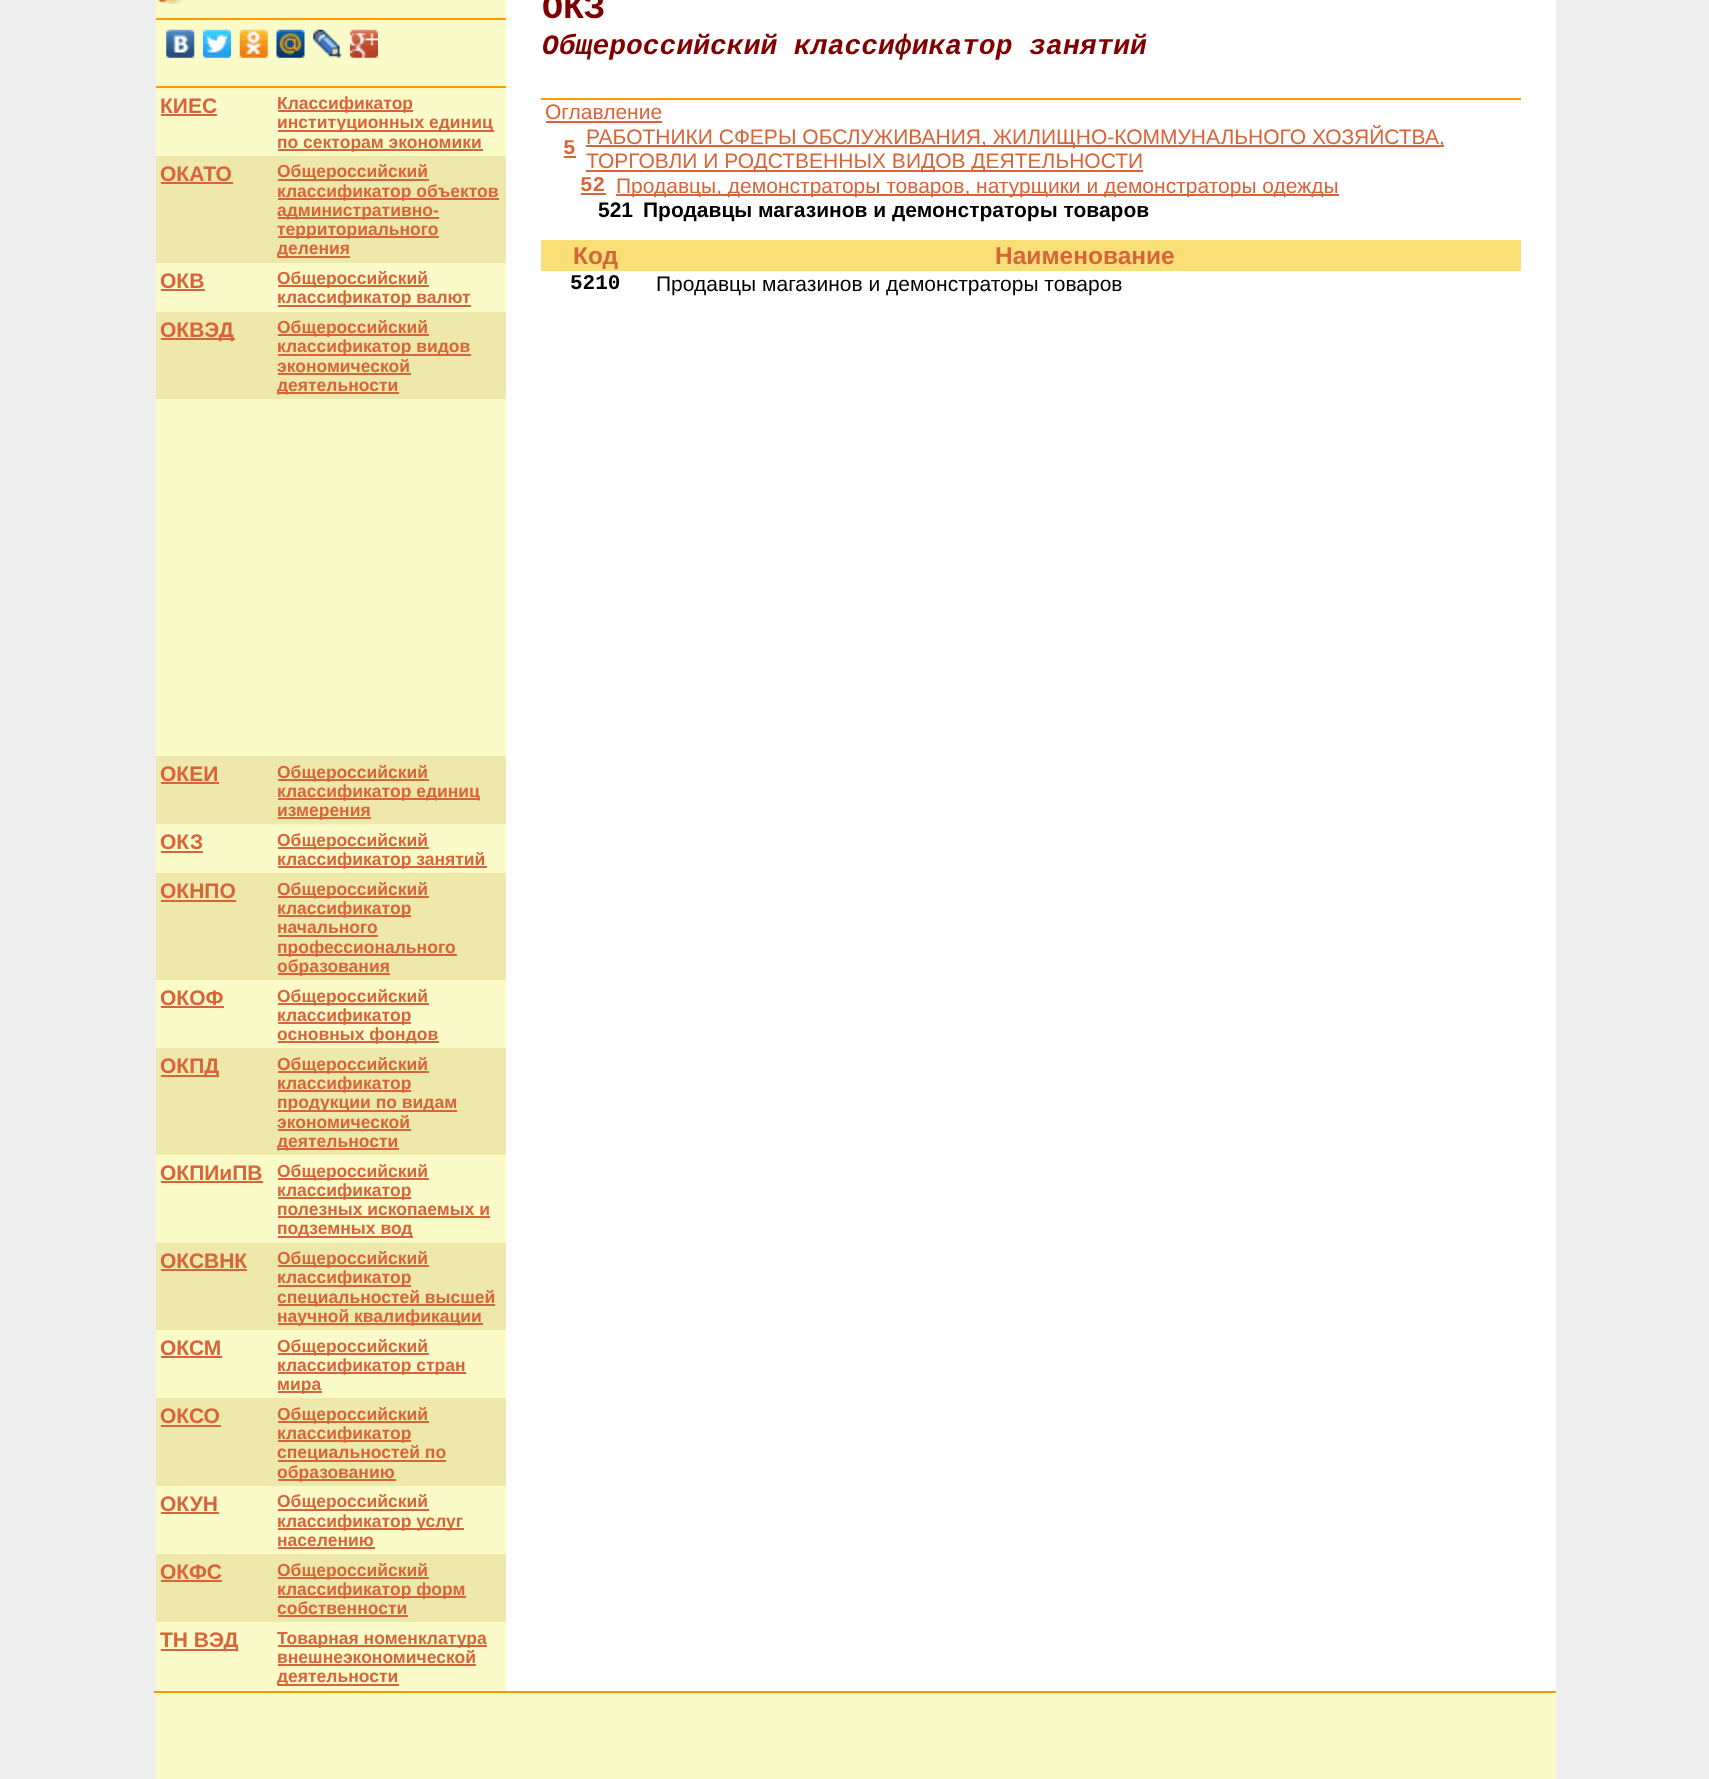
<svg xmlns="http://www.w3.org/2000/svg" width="1709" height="1779">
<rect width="100%" height="100%" fill="#eee"/>
<rect x="506" width="1050" height="1691" fill="#fff"/>
<rect x="156" width="350" height="1691" fill="#fbfbca"/>
<rect x="156" y="18" width="350" height="2" fill="#f90"/>
<image x="155" y="0" width="30" height="4" href="media/1.png"/>
<rect x="156" y="86" width="350" height="2" fill="#f90"/>
<image x="166" y="29" width="29" height="29" href="media/2.png"/>
<image x="203" y="29" width="28" height="29" href="media/3.png"/>
<image x="239" y="29" width="29" height="29" href="media/4.png"/>
<image x="276" y="29" width="29" height="29" href="media/5.png"/>
<image x="313" y="29" width="29" height="29" href="media/6.png"/>
<image x="350" y="29" width="28" height="29" href="media/7.png"/>
<text x="160" y="113" style="font-family:Liberation Sans;font-size:21px;font-weight:bold;fill:#d86539">КИЕС</text>
<rect x="161" y="114" width="56" height="2" fill="#d86539"/>
<rect x="278" y="110" width="135" height="2" fill="#d86539"/>
<text x="277" y="109" style="font-family:Liberation Sans;font-size:17.5px;font-weight:bold;fill:#d86539">Классификатор</text>
<rect x="278" y="130" width="216" height="2" fill="#d86539"/>
<text x="277" y="128" style="font-family:Liberation Sans;font-size:17.5px;font-weight:bold;fill:#d86539">институционных единиц</text>
<rect x="278" y="149" width="205" height="2" fill="#d86539"/>
<text x="277" y="148" style="font-family:Liberation Sans;font-size:17.5px;font-weight:bold;fill:#d86539">по секторам экономики</text>
<rect x="156" y="156" width="350" height="107" fill="#eee8aa"/>
<text x="160" y="181" style="font-family:Liberation Sans;font-size:21px;font-weight:bold;fill:#d86539">ОКАТО</text>
<rect x="161" y="182" width="72" height="2" fill="#d86539"/>
<rect x="278" y="179" width="151" height="2" fill="#d86539"/>
<text x="277" y="177" style="font-family:Liberation Sans;font-size:17.5px;font-weight:bold;fill:#d86539">Общероссийский</text>
<rect x="278" y="198" width="221" height="2" fill="#d86539"/>
<text x="277" y="197" style="font-family:Liberation Sans;font-size:17.5px;font-weight:bold;fill:#d86539">классификатор объектов</text>
<rect x="278" y="217" width="161" height="2" fill="#d86539"/>
<text x="277" y="216" style="font-family:Liberation Sans;font-size:17.5px;font-weight:bold;fill:#d86539">административно-</text>
<rect x="278" y="236" width="161" height="2" fill="#d86539"/>
<text x="277" y="235" style="font-family:Liberation Sans;font-size:17.5px;font-weight:bold;fill:#d86539">территориального</text>
<rect x="278" y="256" width="72" height="2" fill="#d86539"/>
<text x="277" y="254" style="font-family:Liberation Sans;font-size:17.5px;font-weight:bold;fill:#d86539">деления</text>
<text x="160" y="288" style="font-family:Liberation Sans;font-size:21px;font-weight:bold;fill:#d86539">ОКВ</text>
<rect x="161" y="289" width="44" height="2" fill="#d86539"/>
<rect x="278" y="285" width="151" height="2" fill="#d86539"/>
<text x="277" y="284" style="font-family:Liberation Sans;font-size:17.5px;font-weight:bold;fill:#d86539">Общероссийский</text>
<rect x="278" y="305" width="193" height="2" fill="#d86539"/>
<text x="277" y="303" style="font-family:Liberation Sans;font-size:17.5px;font-weight:bold;fill:#d86539">классификатор валют</text>
<rect x="156" y="312" width="350" height="87" fill="#eee8aa"/>
<rect x="161" y="338" width="74" height="2" fill="#d86539"/>
<text x="160" y="337" style="font-family:Liberation Sans;font-size:21px;font-weight:bold;fill:#d86539">ОКВЭД</text>
<rect x="278" y="334" width="151" height="2" fill="#d86539"/>
<text x="277" y="333" style="font-family:Liberation Sans;font-size:17.5px;font-weight:bold;fill:#d86539">Общероссийский</text>
<rect x="278" y="354" width="193" height="2" fill="#d86539"/>
<text x="277" y="352" style="font-family:Liberation Sans;font-size:17.5px;font-weight:bold;fill:#d86539">классификатор видов</text>
<text x="277" y="372" style="font-family:Liberation Sans;font-size:17.5px;font-weight:bold;fill:#d86539">экономической</text>
<rect x="278" y="373" width="133" height="2" fill="#d86539"/>
<rect x="278" y="392" width="121" height="2" fill="#d86539"/>
<text x="277" y="391" style="font-family:Liberation Sans;font-size:17.5px;font-weight:bold;fill:#d86539">деятельности</text>
<rect x="156" y="756" width="350" height="68" fill="#eee8aa"/>
<text x="160" y="781" style="font-family:Liberation Sans;font-size:21px;font-weight:bold;fill:#d86539">ОКЕИ</text>
<rect x="161" y="782" width="58" height="2" fill="#d86539"/>
<rect x="278" y="779" width="151" height="2" fill="#d86539"/>
<text x="277" y="778" style="font-family:Liberation Sans;font-size:17.5px;font-weight:bold;fill:#d86539">Общероссийский</text>
<rect x="278" y="798" width="202" height="2" fill="#d86539"/>
<text x="277" y="797" style="font-family:Liberation Sans;font-size:17.5px;font-weight:bold;fill:#d86539">классификатор единиц</text>
<rect x="278" y="817" width="93" height="2" fill="#d86539"/>
<text x="277" y="816" style="font-family:Liberation Sans;font-size:17.5px;font-weight:bold;fill:#d86539">измерения</text>
<text x="160" y="849" style="font-family:Liberation Sans;font-size:21px;font-weight:bold;fill:#d86539">ОКЗ</text>
<rect x="161" y="851" width="42" height="2" fill="#d86539"/>
<rect x="278" y="847" width="151" height="2" fill="#d86539"/>
<text x="277" y="846" style="font-family:Liberation Sans;font-size:17.5px;font-weight:bold;fill:#d86539">Общероссийский</text>
<rect x="278" y="866" width="209" height="2" fill="#d86539"/>
<text x="277" y="865" style="font-family:Liberation Sans;font-size:17.5px;font-weight:bold;fill:#d86539">классификатор занятий</text>
<rect x="156" y="873" width="350" height="107" fill="#eee8aa"/>
<text x="160" y="898" style="font-family:Liberation Sans;font-size:21px;font-weight:bold;fill:#d86539">ОКНПО</text>
<rect x="161" y="900" width="75" height="2" fill="#d86539"/>
<rect x="278" y="896" width="151" height="2" fill="#d86539"/>
<text x="277" y="895" style="font-family:Liberation Sans;font-size:17.5px;font-weight:bold;fill:#d86539">Общероссийский</text>
<rect x="278" y="915" width="133" height="2" fill="#d86539"/>
<text x="277" y="914" style="font-family:Liberation Sans;font-size:17.5px;font-weight:bold;fill:#d86539">классификатор</text>
<text x="277" y="933" style="font-family:Liberation Sans;font-size:17.5px;font-weight:bold;fill:#d86539">начального</text>
<rect x="278" y="935" width="100" height="2" fill="#d86539"/>
<rect x="278" y="954" width="179" height="2" fill="#d86539"/>
<text x="277" y="953" style="font-family:Liberation Sans;font-size:17.5px;font-weight:bold;fill:#d86539">профессионального</text>
<rect x="278" y="973" width="112" height="2" fill="#d86539"/>
<text x="277" y="972" style="font-family:Liberation Sans;font-size:17.5px;font-weight:bold;fill:#d86539">образования</text>
<text x="160" y="1005" style="font-family:Liberation Sans;font-size:21px;font-weight:bold;fill:#d86539">ОКОФ</text>
<rect x="161" y="1006" width="63" height="2" fill="#d86539"/>
<rect x="278" y="1003" width="151" height="2" fill="#d86539"/>
<text x="277" y="1002" style="font-family:Liberation Sans;font-size:17.5px;font-weight:bold;fill:#d86539">Общероссийский</text>
<rect x="278" y="1022" width="133" height="2" fill="#d86539"/>
<text x="277" y="1021" style="font-family:Liberation Sans;font-size:17.5px;font-weight:bold;fill:#d86539">классификатор</text>
<rect x="278" y="1041" width="161" height="2" fill="#d86539"/>
<text x="277" y="1040" style="font-family:Liberation Sans;font-size:17.5px;font-weight:bold;fill:#d86539">основных фондов</text>
<rect x="156" y="1048" width="350" height="107" fill="#eee8aa"/>
<rect x="161" y="1075" width="58" height="2" fill="#d86539"/>
<text x="160" y="1073" style="font-family:Liberation Sans;font-size:21px;font-weight:bold;fill:#d86539">ОКПД</text>
<rect x="278" y="1071" width="151" height="2" fill="#d86539"/>
<text x="277" y="1070" style="font-family:Liberation Sans;font-size:17.5px;font-weight:bold;fill:#d86539">Общероссийский</text>
<rect x="278" y="1090" width="133" height="2" fill="#d86539"/>
<text x="277" y="1089" style="font-family:Liberation Sans;font-size:17.5px;font-weight:bold;fill:#d86539">классификатор</text>
<rect x="278" y="1110" width="179" height="2" fill="#d86539"/>
<text x="277" y="1108" style="font-family:Liberation Sans;font-size:17.5px;font-weight:bold;fill:#d86539">продукции по видам</text>
<text x="277" y="1128" style="font-family:Liberation Sans;font-size:17.5px;font-weight:bold;fill:#d86539">экономической</text>
<rect x="278" y="1129" width="133" height="2" fill="#d86539"/>
<rect x="278" y="1148" width="121" height="2" fill="#d86539"/>
<text x="277" y="1147" style="font-family:Liberation Sans;font-size:17.5px;font-weight:bold;fill:#d86539">деятельности</text>
<text x="160" y="1180" style="font-family:Liberation Sans;font-size:21px;font-weight:bold;fill:#d86539">ОКПИиПВ</text>
<rect x="161" y="1181" width="102" height="2" fill="#d86539"/>
<rect x="278" y="1178" width="151" height="2" fill="#d86539"/>
<text x="277" y="1177" style="font-family:Liberation Sans;font-size:17.5px;font-weight:bold;fill:#d86539">Общероссийский</text>
<rect x="278" y="1197" width="133" height="2" fill="#d86539"/>
<text x="277" y="1196" style="font-family:Liberation Sans;font-size:17.5px;font-weight:bold;fill:#d86539">классификатор</text>
<text x="277" y="1215" style="font-family:Liberation Sans;font-size:17.5px;font-weight:bold;fill:#d86539">полезных ископаемых и</text>
<rect x="278" y="1216" width="212" height="2" fill="#d86539"/>
<rect x="278" y="1236" width="135" height="2" fill="#d86539"/>
<text x="277" y="1234" style="font-family:Liberation Sans;font-size:17.5px;font-weight:bold;fill:#d86539">подземных вод</text>
<rect x="156" y="1243" width="350" height="87" fill="#eee8aa"/>
<text x="160" y="1268" style="font-family:Liberation Sans;font-size:21px;font-weight:bold;fill:#d86539">ОКСВНК</text>
<rect x="161" y="1269" width="86" height="2" fill="#d86539"/>
<rect x="278" y="1265" width="151" height="2" fill="#d86539"/>
<text x="277" y="1264" style="font-family:Liberation Sans;font-size:17.5px;font-weight:bold;fill:#d86539">Общероссийский</text>
<rect x="278" y="1285" width="133" height="2" fill="#d86539"/>
<text x="277" y="1283" style="font-family:Liberation Sans;font-size:17.5px;font-weight:bold;fill:#d86539">классификатор</text>
<rect x="278" y="1304" width="217" height="2" fill="#d86539"/>
<text x="277" y="1303" style="font-family:Liberation Sans;font-size:17.5px;font-weight:bold;fill:#d86539">специальностей высшей</text>
<rect x="278" y="1323" width="205" height="2" fill="#d86539"/>
<text x="277" y="1322" style="font-family:Liberation Sans;font-size:17.5px;font-weight:bold;fill:#d86539">научной квалификации</text>
<text x="160" y="1355" style="font-family:Liberation Sans;font-size:21px;font-weight:bold;fill:#d86539">ОКСМ</text>
<rect x="161" y="1356" width="61" height="2" fill="#d86539"/>
<rect x="278" y="1353" width="151" height="2" fill="#d86539"/>
<text x="277" y="1352" style="font-family:Liberation Sans;font-size:17.5px;font-weight:bold;fill:#d86539">Общероссийский</text>
<rect x="278" y="1372" width="188" height="2" fill="#d86539"/>
<text x="277" y="1371" style="font-family:Liberation Sans;font-size:17.5px;font-weight:bold;fill:#d86539">классификатор стран</text>
<rect x="278" y="1391" width="44" height="2" fill="#d86539"/>
<text x="277" y="1390" style="font-family:Liberation Sans;font-size:17.5px;font-weight:bold;fill:#d86539">мира</text>
<rect x="156" y="1398" width="350" height="88" fill="#eee8aa"/>
<text x="160" y="1423" style="font-family:Liberation Sans;font-size:21px;font-weight:bold;fill:#d86539">ОКСО</text>
<rect x="161" y="1425" width="60" height="2" fill="#d86539"/>
<rect x="278" y="1421" width="151" height="2" fill="#d86539"/>
<text x="277" y="1420" style="font-family:Liberation Sans;font-size:17.5px;font-weight:bold;fill:#d86539">Общероссийский</text>
<rect x="278" y="1440" width="133" height="2" fill="#d86539"/>
<text x="277" y="1439" style="font-family:Liberation Sans;font-size:17.5px;font-weight:bold;fill:#d86539">классификатор</text>
<rect x="278" y="1460" width="168" height="2" fill="#d86539"/>
<text x="277" y="1458" style="font-family:Liberation Sans;font-size:17.5px;font-weight:bold;fill:#d86539">специальностей по</text>
<rect x="278" y="1479" width="118" height="2" fill="#d86539"/>
<text x="277" y="1478" style="font-family:Liberation Sans;font-size:17.5px;font-weight:bold;fill:#d86539">образованию</text>
<text x="160" y="1511" style="font-family:Liberation Sans;font-size:21px;font-weight:bold;fill:#d86539">ОКУН</text>
<rect x="161" y="1512" width="58" height="2" fill="#d86539"/>
<rect x="278" y="1509" width="151" height="2" fill="#d86539"/>
<text x="277" y="1507" style="font-family:Liberation Sans;font-size:17.5px;font-weight:bold;fill:#d86539">Общероссийский</text>
<rect x="278" y="1528" width="186" height="2" fill="#d86539"/>
<text x="277" y="1527" style="font-family:Liberation Sans;font-size:17.5px;font-weight:bold;fill:#d86539">классификатор услуг</text>
<text x="277" y="1546" style="font-family:Liberation Sans;font-size:17.5px;font-weight:bold;fill:#d86539">населению</text>
<rect x="278" y="1547" width="97" height="2" fill="#d86539"/>
<rect x="156" y="1554" width="350" height="68" fill="#eee8aa"/>
<text x="160" y="1579" style="font-family:Liberation Sans;font-size:21px;font-weight:bold;fill:#d86539">ОКФС</text>
<rect x="161" y="1580" width="61" height="2" fill="#d86539"/>
<rect x="278" y="1577" width="151" height="2" fill="#d86539"/>
<text x="277" y="1576" style="font-family:Liberation Sans;font-size:17.5px;font-weight:bold;fill:#d86539">Общероссийский</text>
<rect x="278" y="1596" width="188" height="2" fill="#d86539"/>
<text x="277" y="1595" style="font-family:Liberation Sans;font-size:17.5px;font-weight:bold;fill:#d86539">классификатор форм</text>
<text x="277" y="1614" style="font-family:Liberation Sans;font-size:17.5px;font-weight:bold;fill:#d86539">собственности</text>
<rect x="278" y="1615" width="130" height="2" fill="#d86539"/>
<rect x="161" y="1649" width="77" height="2" fill="#d86539"/>
<text x="160" y="1647" style="font-family:Liberation Sans;font-size:21px;font-weight:bold;fill:#d86539">ТН ВЭД</text>
<rect x="278" y="1645" width="209" height="2" fill="#d86539"/>
<text x="277" y="1644" style="font-family:Liberation Sans;font-size:17.5px;font-weight:bold;fill:#d86539">Товарная номенклатура</text>
<text x="277" y="1663" style="font-family:Liberation Sans;font-size:17.5px;font-weight:bold;fill:#d86539">внешнеэкономической</text>
<rect x="278" y="1664" width="198" height="2" fill="#d86539"/>
<rect x="278" y="1684" width="121" height="2" fill="#d86539"/>
<text x="277" y="1682" style="font-family:Liberation Sans;font-size:17.5px;font-weight:bold;fill:#d86539">деятельности</text>
<text x="542" y="18" style="font-family:Liberation Mono;font-size:35px;font-weight:bold;fill:#800000">ОКЗ</text>
<text x="542" y="54" style="font-family:Liberation Mono;font-size:28px;font-weight:bold;font-style:italic;fill:#800000">Общероссийский классификатор занятий</text>
<rect x="541" y="98" width="980" height="2" fill="#f90"/>
<text x="545" y="119" style="font-family:Liberation Sans;font-size:21px;fill:#d86539">Оглавление</text>
<rect x="546" y="121" width="116" height="2" fill="#d86539"/>
<text x="563" y="154" style="font-family:Liberation Mono;font-size:21px;font-weight:bold;fill:#d86539">5</text>
<rect x="564" y="156" width="12" height="2" fill="#d86539"/>
<rect x="586" y="145" width="858" height="2" fill="#d86539"/>
<text x="586" y="144" style="font-family:Liberation Sans;font-size:21px;fill:#d86539">РАБОТНИКИ СФЕРЫ ОБСЛУЖИВАНИЯ, ЖИЛИЩНО-КОММУНАЛЬНОГО ХОЗЯЙСТВА,</text>
<rect x="586" y="170" width="557" height="2" fill="#d86539"/>
<text x="586" y="168" style="font-family:Liberation Sans;font-size:21px;fill:#d86539">ТОРГОВЛИ И РОДСТВЕННЫХ ВИДОВ ДЕЯТЕЛЬНОСТИ</text>
<text x="580" y="191" style="font-family:Liberation Mono;font-size:21px;font-weight:bold;fill:#d86539">52</text>
<rect x="581" y="193" width="25" height="2" fill="#d86539"/>
<rect x="616" y="194" width="723" height="2" fill="#d86539"/>
<text x="616" y="193" style="font-family:Liberation Sans;font-size:21px;fill:#d86539">Продавцы, демонстраторы товаров, натурщики и демонстраторы одежды</text>
<text x="598" y="217" style="font-family:Liberation Sans;font-size:21px;font-weight:bold;fill:#000">521</text>
<text x="643" y="217" style="font-family:Liberation Sans;font-size:21px;font-weight:bold;fill:#000">Продавцы магазинов и демонстраторы товаров</text>
<rect x="541" y="240" width="980" height="31" fill="#f9df76"/>
<text x="573" y="264" style="font-family:Liberation Sans;font-size:24.5px;font-weight:bold;fill:#d86539">Код</text>
<text x="995" y="264" style="font-family:Liberation Sans;font-size:24.5px;font-weight:bold;fill:#d86539">Наименование</text>
<text x="570" y="289" style="font-family:Liberation Mono;font-size:21px;font-weight:bold;fill:#000">5210</text>
<text x="656" y="291" style="font-family:Liberation Sans;font-size:21px;fill:#000">Продавцы магазинов и демонстраторы товаров</text>
<rect x="156" y="1693" width="1400" height="86" fill="#fbfbca"/>
<rect x="154" y="1691" width="1402" height="2" fill="#f90"/>
</svg>
